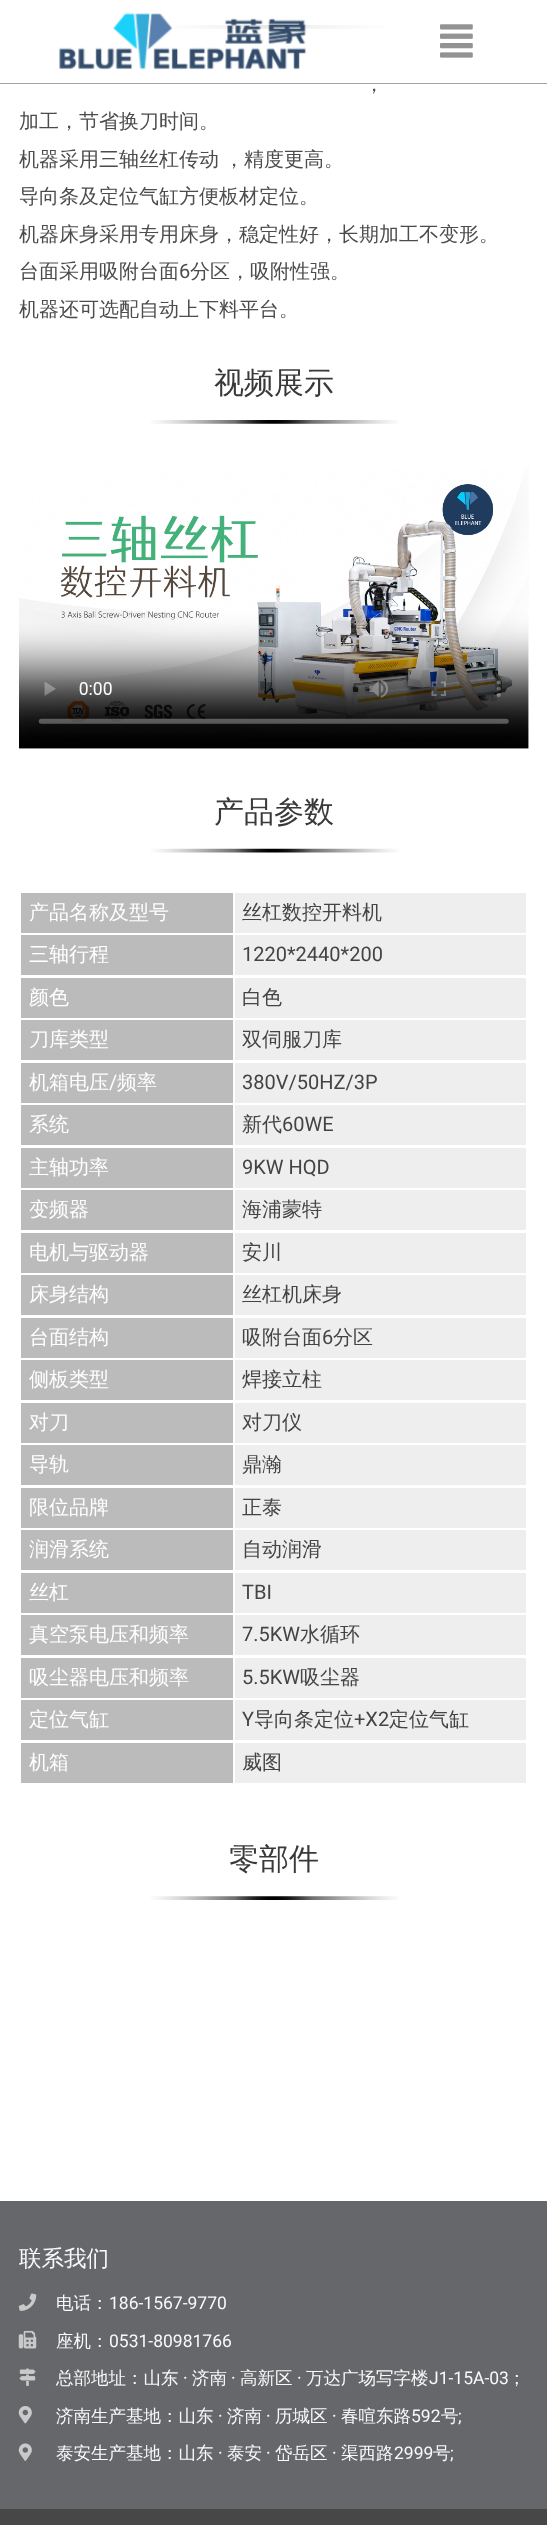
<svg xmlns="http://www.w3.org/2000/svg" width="547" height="2525">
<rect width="100%" height="100%" fill="#fff"/>
<image x="151" y="25" width="248" height="4" href="media/3.png"/>
<rect x="151" y="25" width="248" height="4" fill="#ffffffe8"/>
<rect y="83" width="547" height="1" fill="#999999e8"/>
<image x="59" y="13" width="248" height="57" href="media/1.png"/>
<image x="440" y="24" width="33" height="34" href="media/2.png"/>
<text x="364" y="91" word-spacing="-1" style="font-family:WenQuanYi Zen Hei;font-size:20px;font-weight:500;fill:#4c4c4c">，</text>
<text x="19" y="128" style="font-family:WenQuanYi Zen Hei;font-size:20px;font-weight:500;fill:#4c4c4c">加工，节省换刀时间。</text>
<text x="19" y="166" word-spacing="-1" style="font-family:WenQuanYi Zen Hei;font-size:20px;font-weight:500;fill:#4c4c4c">机器采用三轴丝杠传动 ，精度更高。</text>
<text x="19" y="203" style="font-family:WenQuanYi Zen Hei;font-size:20px;font-weight:500;fill:#4c4c4c">导向条及定位气缸方便板材定位。</text>
<text x="19" y="241" style="font-family:WenQuanYi Zen Hei;font-size:20px;font-weight:500;fill:#4c4c4c">机器床身采用专用床身，稳定性好，长期加工不变形。</text>
<text x="19" y="278" style="font-family:WenQuanYi Zen Hei;font-size:20px;font-weight:500;fill:#4c4c4c">台面采用吸附台面</text>
<text x="179" y="278" style="font-family:Roboto;font-size:20px;fill:#4c4c4c">6</text>
<text x="190" y="278" style="font-family:WenQuanYi Zen Hei;font-size:20px;font-weight:500;fill:#4c4c4c">分区，吸附性强。</text>
<text x="19" y="316" style="font-family:WenQuanYi Zen Hei;font-size:20px;font-weight:500;fill:#4c4c4c">机器还可选配自动上下料平台。</text>
<text x="214" y="393" style="font-family:WenQuanYi Zen Hei;font-size:30px;font-weight:500;fill:#393939">视频展示</text>
<image x="151" y="420" width="248" height="4" href="media/3.png"/>
<image x="19" y="467" width="510" height="282" href="media/4.png"/>
<text x="214" y="822" style="font-family:WenQuanYi Zen Hei;font-size:30px;font-weight:500;fill:#393939">产品参数</text>
<image x="151" y="848" width="248" height="5" href="media/5.png"/>
<rect x="21" y="893" width="212" height="40" fill="#bbb"/>
<text x="29" y="919" style="font-family:WenQuanYi Zen Hei;font-size:20px;font-weight:500;fill:#fff">产品名称及型号</text>
<rect x="235" y="893" width="291" height="40" fill="#eee"/>
<text x="242" y="919" style="font-family:WenQuanYi Zen Hei;font-size:20px;font-weight:500;fill:#444">丝杠数控开料机</text>
<rect x="21" y="935" width="212" height="40" fill="#bbb"/>
<text x="29" y="961" style="font-family:WenQuanYi Zen Hei;font-size:20px;font-weight:500;fill:#fff">三轴行程</text>
<rect x="235" y="935" width="291" height="40" fill="#eee"/>
<text x="242" y="961" style="font-family:Roboto;font-size:20px;fill:#444">1220*2440*200</text>
<rect x="21" y="978" width="212" height="40" fill="#bbb"/>
<text x="29" y="1004" style="font-family:WenQuanYi Zen Hei;font-size:20px;font-weight:500;fill:#fff">颜色</text>
<rect x="235" y="978" width="291" height="40" fill="#eee"/>
<text x="242" y="1004" style="font-family:WenQuanYi Zen Hei;font-size:20px;font-weight:500;fill:#444">白色</text>
<rect x="21" y="1020" width="212" height="40" fill="#bbb"/>
<text x="29" y="1046" style="font-family:WenQuanYi Zen Hei;font-size:20px;font-weight:500;fill:#fff">刀库类型</text>
<rect x="235" y="1020" width="291" height="40" fill="#eee"/>
<text x="242" y="1046" style="font-family:WenQuanYi Zen Hei;font-size:20px;font-weight:500;fill:#444">双伺服刀库</text>
<rect x="21" y="1063" width="212" height="40" fill="#bbb"/>
<text x="29" y="1089" style="font-family:WenQuanYi Zen Hei;font-size:20px;font-weight:500;fill:#fff">机箱电压</text>
<text x="109" y="1089" style="font-family:Roboto;font-size:20px;fill:#fff">/</text>
<text x="117" y="1089" style="font-family:WenQuanYi Zen Hei;font-size:20px;font-weight:500;fill:#fff">频率</text>
<rect x="235" y="1063" width="291" height="40" fill="#eee"/>
<text x="242" y="1089" style="font-family:Roboto;font-size:20px;fill:#444">380V/50HZ/3P</text>
<rect x="21" y="1105" width="212" height="40" fill="#bbb"/>
<text x="29" y="1131" style="font-family:WenQuanYi Zen Hei;font-size:20px;font-weight:500;fill:#fff">系统</text>
<rect x="235" y="1105" width="291" height="40" fill="#eee"/>
<text x="242" y="1131" style="font-family:WenQuanYi Zen Hei;font-size:20px;font-weight:500;fill:#444">新代</text>
<text x="282" y="1131" style="font-family:Roboto;font-size:20px;fill:#444">60WE</text>
<rect x="21" y="1148" width="212" height="40" fill="#bbb"/>
<text x="29" y="1174" style="font-family:WenQuanYi Zen Hei;font-size:20px;font-weight:500;fill:#fff">主轴功率</text>
<rect x="235" y="1148" width="291" height="40" fill="#eee"/>
<text x="242" y="1174" style="font-family:Roboto;font-size:20px;fill:#444">9KW HQD</text>
<rect x="21" y="1190" width="212" height="40" fill="#bbb"/>
<text x="29" y="1216" style="font-family:WenQuanYi Zen Hei;font-size:20px;font-weight:500;fill:#fff">变频器</text>
<rect x="235" y="1190" width="291" height="40" fill="#eee"/>
<text x="242" y="1216" style="font-family:WenQuanYi Zen Hei;font-size:20px;font-weight:500;fill:#444">海浦蒙特</text>
<rect x="21" y="1233" width="212" height="40" fill="#bbb"/>
<text x="29" y="1259" style="font-family:WenQuanYi Zen Hei;font-size:20px;font-weight:500;fill:#fff">电机与驱动器</text>
<rect x="235" y="1233" width="291" height="40" fill="#eee"/>
<text x="242" y="1259" style="font-family:WenQuanYi Zen Hei;font-size:20px;font-weight:500;fill:#444">安川</text>
<rect x="21" y="1275" width="212" height="40" fill="#bbb"/>
<text x="29" y="1301" style="font-family:WenQuanYi Zen Hei;font-size:20px;font-weight:500;fill:#fff">床身结构</text>
<rect x="235" y="1275" width="291" height="40" fill="#eee"/>
<text x="242" y="1301" style="font-family:WenQuanYi Zen Hei;font-size:20px;font-weight:500;fill:#444">丝杠机床身</text>
<rect x="21" y="1318" width="212" height="40" fill="#bbb"/>
<text x="29" y="1344" style="font-family:WenQuanYi Zen Hei;font-size:20px;font-weight:500;fill:#fff">台面结构</text>
<rect x="235" y="1318" width="291" height="40" fill="#eee"/>
<text x="242" y="1344" style="font-family:WenQuanYi Zen Hei;font-size:20px;font-weight:500;fill:#444">吸附台面</text>
<text x="322" y="1344" style="font-family:Roboto;font-size:20px;fill:#444">6</text>
<text x="333" y="1344" style="font-family:WenQuanYi Zen Hei;font-size:20px;font-weight:500;fill:#444">分区</text>
<rect x="21" y="1360" width="212" height="40" fill="#bbb"/>
<text x="29" y="1386" style="font-family:WenQuanYi Zen Hei;font-size:20px;font-weight:500;fill:#fff">侧板类型</text>
<rect x="235" y="1360" width="291" height="40" fill="#eee"/>
<text x="242" y="1386" style="font-family:WenQuanYi Zen Hei;font-size:20px;font-weight:500;fill:#444">焊接立柱</text>
<rect x="21" y="1403" width="212" height="40" fill="#bbb"/>
<text x="29" y="1429" style="font-family:WenQuanYi Zen Hei;font-size:20px;font-weight:500;fill:#fff">对刀</text>
<rect x="235" y="1403" width="291" height="40" fill="#eee"/>
<text x="242" y="1429" style="font-family:WenQuanYi Zen Hei;font-size:20px;font-weight:500;fill:#444">对刀仪</text>
<rect x="21" y="1445" width="212" height="40" fill="#bbb"/>
<text x="29" y="1471" style="font-family:WenQuanYi Zen Hei;font-size:20px;font-weight:500;fill:#fff">导轨</text>
<rect x="235" y="1445" width="291" height="40" fill="#eee"/>
<text x="242" y="1471" style="font-family:WenQuanYi Zen Hei;font-size:20px;font-weight:500;fill:#444">鼎瀚</text>
<rect x="21" y="1488" width="212" height="40" fill="#bbb"/>
<text x="29" y="1514" style="font-family:WenQuanYi Zen Hei;font-size:20px;font-weight:500;fill:#fff">限位品牌</text>
<rect x="235" y="1488" width="291" height="40" fill="#eee"/>
<text x="242" y="1514" style="font-family:WenQuanYi Zen Hei;font-size:20px;font-weight:500;fill:#444">正泰</text>
<rect x="21" y="1530" width="212" height="40" fill="#bbb"/>
<text x="29" y="1556" style="font-family:WenQuanYi Zen Hei;font-size:20px;font-weight:500;fill:#fff">润滑系统</text>
<rect x="235" y="1530" width="291" height="40" fill="#eee"/>
<text x="242" y="1556" style="font-family:WenQuanYi Zen Hei;font-size:20px;font-weight:500;fill:#444">自动润滑</text>
<rect x="21" y="1573" width="212" height="40" fill="#bbb"/>
<text x="29" y="1599" style="font-family:WenQuanYi Zen Hei;font-size:20px;font-weight:500;fill:#fff">丝杠</text>
<rect x="235" y="1573" width="291" height="40" fill="#eee"/>
<text x="242" y="1599" style="font-family:Roboto;font-size:20px;fill:#444">TBI</text>
<rect x="21" y="1615" width="212" height="40" fill="#bbb"/>
<text x="29" y="1641" style="font-family:WenQuanYi Zen Hei;font-size:20px;font-weight:500;fill:#fff">真空泵电压和频率</text>
<rect x="235" y="1615" width="291" height="40" fill="#eee"/>
<text x="242" y="1641" style="font-family:Roboto;font-size:20px;fill:#444">7.5KW</text>
<text x="300" y="1641" style="font-family:WenQuanYi Zen Hei;font-size:20px;font-weight:500;fill:#444">水循环</text>
<rect x="21" y="1658" width="212" height="40" fill="#bbb"/>
<text x="29" y="1684" style="font-family:WenQuanYi Zen Hei;font-size:20px;font-weight:500;fill:#fff">吸尘器电压和频率</text>
<rect x="235" y="1658" width="291" height="40" fill="#eee"/>
<text x="242" y="1684" style="font-family:Roboto;font-size:20px;fill:#444">5.5KW</text>
<text x="300" y="1684" style="font-family:WenQuanYi Zen Hei;font-size:20px;font-weight:500;fill:#444">吸尘器</text>
<rect x="21" y="1700" width="212" height="40" fill="#bbb"/>
<text x="29" y="1726" style="font-family:WenQuanYi Zen Hei;font-size:20px;font-weight:500;fill:#fff">定位气缸</text>
<rect x="235" y="1700" width="291" height="40" fill="#eee"/>
<text x="242" y="1726" style="font-family:Roboto;font-size:20px;fill:#444">Y</text>
<text x="254" y="1726" style="font-family:WenQuanYi Zen Hei;font-size:20px;font-weight:500;fill:#444">导向条定位</text>
<text x="354" y="1726" style="font-family:Roboto;font-size:20px;fill:#444">+X2</text>
<text x="389" y="1726" style="font-family:WenQuanYi Zen Hei;font-size:20px;font-weight:500;fill:#444">定位气缸</text>
<rect x="21" y="1743" width="212" height="40" fill="#bbb"/>
<text x="29" y="1769" style="font-family:WenQuanYi Zen Hei;font-size:20px;font-weight:500;fill:#fff">机箱</text>
<rect x="235" y="1743" width="291" height="40" fill="#eee"/>
<text x="242" y="1769" style="font-family:WenQuanYi Zen Hei;font-size:20px;font-weight:500;fill:#444">威图</text>
<text x="229" y="1869" style="font-family:WenQuanYi Zen Hei;font-size:30px;font-weight:500;fill:#393939">零部件</text>
<image x="151" y="1896" width="248" height="4" href="media/6.png"/>
<rect y="2201" width="547" height="308" fill="#65676a"/>
<text x="19" y="2266" style="font-family:WenQuanYi Zen Hei;font-size:22.5px;font-weight:500;fill:#f9f9f9">联系我们</text>
<image x="18" y="2293" width="19" height="18" href="media/7.png"/>
<text x="56" y="2309" style="font-family:WenQuanYi Zen Hei;font-size:17.5px;font-weight:500;fill:#f9f9f9">电话：</text>
<text x="109" y="2309" style="font-family:Roboto;font-size:17.5px;fill:#f9f9f9">186-1567-9770</text>
<image x="18" y="2330" width="19" height="19" href="media/8.png"/>
<text x="56" y="2347" style="font-family:WenQuanYi Zen Hei;font-size:17.5px;font-weight:500;fill:#f9f9f9">座机：</text>
<text x="109" y="2347" style="font-family:Roboto;font-size:17.5px;fill:#f9f9f9">0531-80981766</text>
<image x="19" y="2368" width="17" height="18" href="media/9.png"/>
<text x="56" y="2384" style="font-family:WenQuanYi Zen Hei;font-size:17.5px;font-weight:500;fill:#f9f9f9">总部地址：山东</text>
<text x="183" y="2384" style="font-family:Roboto;font-size:17.5px;fill:#f9f9f9">·</text>
<text x="192" y="2384" style="font-family:WenQuanYi Zen Hei;font-size:17.5px;font-weight:500;fill:#f9f9f9">济南</text>
<text x="231" y="2384" style="font-family:Roboto;font-size:17.5px;fill:#f9f9f9">·</text>
<text x="240" y="2384" style="font-family:WenQuanYi Zen Hei;font-size:17.5px;font-weight:500;fill:#f9f9f9">高新区</text>
<text x="297" y="2384" style="font-family:Roboto;font-size:17.5px;fill:#f9f9f9">·</text>
<text x="306" y="2384" style="font-family:WenQuanYi Zen Hei;font-size:17.5px;font-weight:500;fill:#f9f9f9">万达广场写字楼</text>
<text x="429" y="2384" style="font-family:Roboto;font-size:17.5px;fill:#f9f9f9">J1-15A-03</text>
<text x="508" y="2384" style="font-family:WenQuanYi Zen Hei;font-size:17.5px;font-weight:500;fill:#f9f9f9">；</text>
<image x="18" y="2406" width="14" height="18" href="media/10.png"/>
<text x="56" y="2422" style="font-family:WenQuanYi Zen Hei;font-size:17.5px;font-weight:500;fill:#f9f9f9">济南生产基地：山东</text>
<text x="218" y="2422" style="font-family:Roboto;font-size:17.5px;fill:#f9f9f9">·</text>
<text x="227" y="2422" style="font-family:WenQuanYi Zen Hei;font-size:17.5px;font-weight:500;fill:#f9f9f9">济南</text>
<text x="266" y="2422" style="font-family:Roboto;font-size:17.5px;fill:#f9f9f9">·</text>
<text x="275" y="2422" style="font-family:WenQuanYi Zen Hei;font-size:17.5px;font-weight:500;fill:#f9f9f9">历城区</text>
<text x="332" y="2422" style="font-family:Roboto;font-size:17.5px;fill:#f9f9f9">·</text>
<text x="341" y="2422" style="font-family:WenQuanYi Zen Hei;font-size:17.5px;font-weight:500;fill:#f9f9f9">春喧东路</text>
<text x="411" y="2422" style="font-family:Roboto;font-size:17.5px;fill:#f9f9f9">592</text>
<text x="441" y="2422" style="font-family:WenQuanYi Zen Hei;font-size:17.5px;font-weight:500;fill:#f9f9f9">号</text>
<text x="458" y="2422" style="font-family:Roboto;font-size:17.5px;fill:#f9f9f9">;</text>
<image x="18" y="2443" width="14" height="18" href="media/11.png"/>
<text x="56" y="2459" style="font-family:WenQuanYi Zen Hei;font-size:17.5px;font-weight:500;fill:#f9f9f9">泰安生产基地：山东</text>
<text x="218" y="2459" style="font-family:Roboto;font-size:17.5px;fill:#f9f9f9">·</text>
<text x="227" y="2459" style="font-family:WenQuanYi Zen Hei;font-size:17.5px;font-weight:500;fill:#f9f9f9">泰安</text>
<text x="266" y="2459" style="font-family:Roboto;font-size:17.5px;fill:#f9f9f9">·</text>
<text x="275" y="2459" style="font-family:WenQuanYi Zen Hei;font-size:17.5px;font-weight:500;fill:#f9f9f9">岱岳区</text>
<text x="332" y="2459" style="font-family:Roboto;font-size:17.5px;fill:#f9f9f9">·</text>
<text x="341" y="2459" style="font-family:WenQuanYi Zen Hei;font-size:17.5px;font-weight:500;fill:#f9f9f9">渠西路</text>
<text x="394" y="2459" style="font-family:Roboto;font-size:17.5px;fill:#f9f9f9">2999</text>
<text x="433" y="2459" style="font-family:WenQuanYi Zen Hei;font-size:17.5px;font-weight:500;fill:#f9f9f9">号</text>
<text x="450" y="2459" style="font-family:Roboto;font-size:17.5px;fill:#f9f9f9">;</text>
<rect y="2509" width="547" height="16" fill="#474748"/>
</svg>
